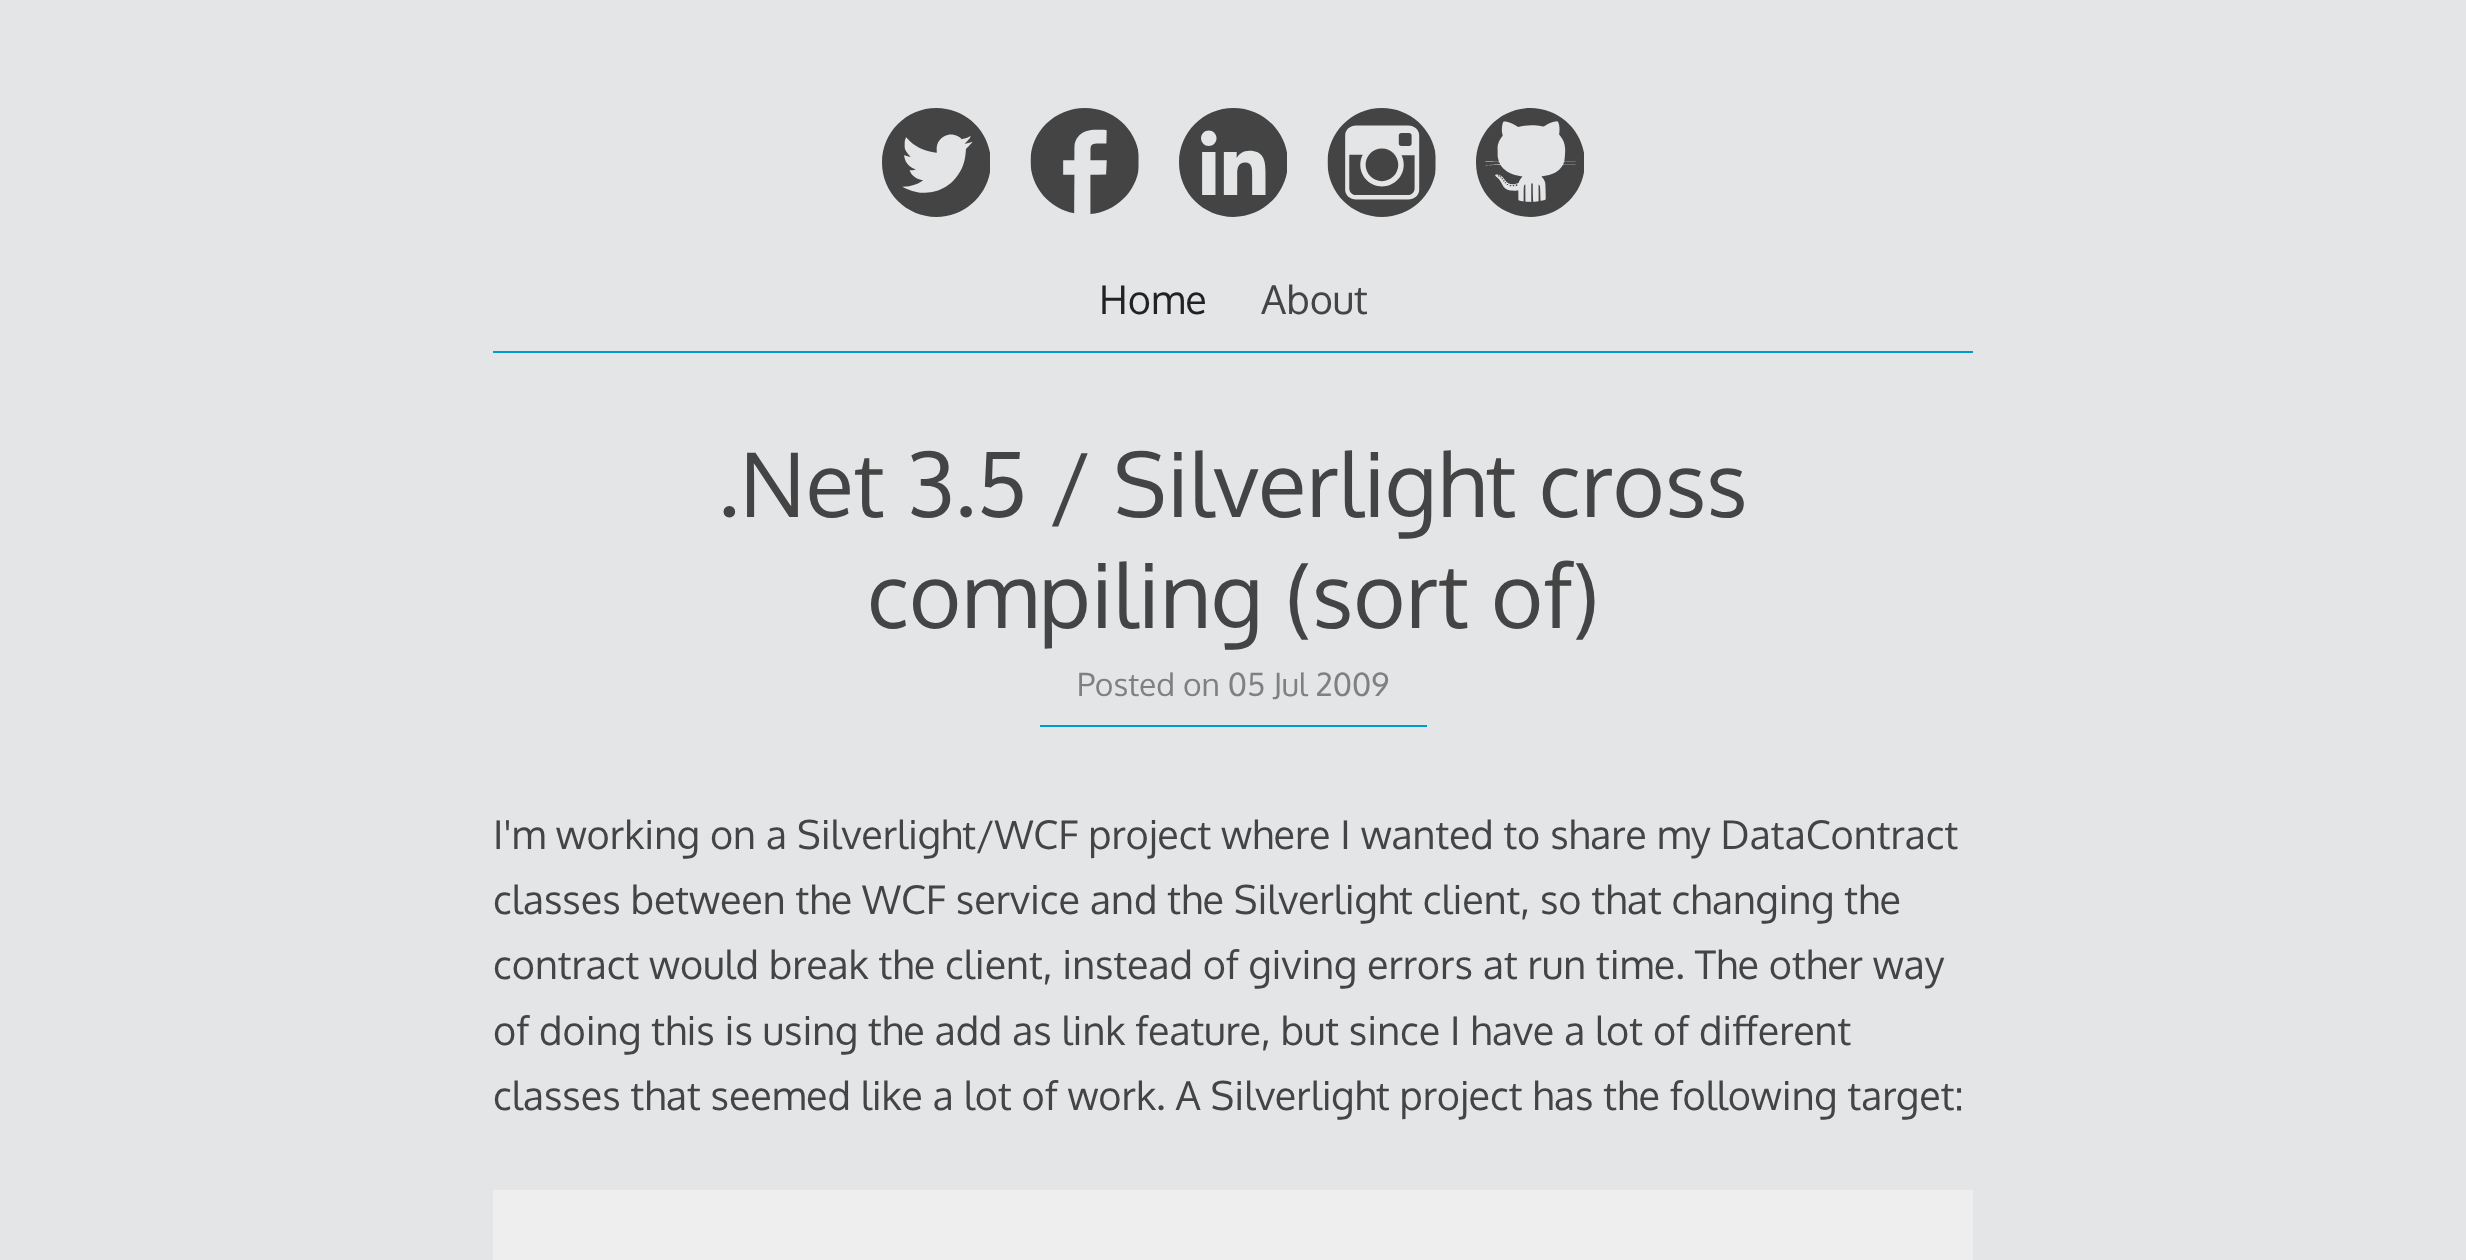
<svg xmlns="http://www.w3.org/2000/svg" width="2466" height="1260">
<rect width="100%" height="100%" fill="#e3e5e7"/>
<rect x="493" y="351" width="1480" height="2" fill="#009bcd"/>
<image x="882" y="108" width="108" height="109" href="media/1.png"/>
<image x="1030" y="108" width="109" height="106" href="media/2.png"/>
<image x="1179" y="108" width="108" height="109" href="media/3.png"/>
<image x="1327" y="108" width="109" height="109" href="media/4.png"/>
<image x="1476" y="108" width="108" height="109" href="media/5.png"/>
<text x="1099" y="314" style="font-family:Oxygen;font-size:39.6px;fill:#222">Home</text>
<text x="1261" y="314" style="font-family:Oxygen;font-size:39.6px;fill:#444">About</text>
<text x="718" y="517" style="font-family:Oxygen;font-size:89.1px;fill:#444">.Net 3.5 / Silverlight cross</text>
<text x="867" y="628" style="font-family:Oxygen;font-size:89.1px;fill:#444">compiling (sort of)</text>
<rect x="1040" y="725" width="387" height="2" fill="#009bcd"/>
<text x="1077" y="696" style="font-family:Oxygen;font-size:31.75px;fill:#808080">Posted on 05 Jul 2009</text>
<text x="493" y="849" style="font-family:Oxygen;font-size:39.6px;fill:#444">I'm working on a Silverlight/WCF project where I wanted to share my DataContract</text>
<text x="493" y="914" style="font-family:Oxygen;font-size:39.6px;fill:#444">classes between the WCF service and the Silverlight client, so that changing the</text>
<text x="493" y="979" style="font-family:Oxygen;font-size:39.6px;fill:#444">contract would break the client, instead of giving errors at run time. The other way</text>
<text x="493" y="1045" style="font-family:Oxygen;font-size:39.6px;fill:#444">of doing this is using the add as link feature, but since I have a lot of different</text>
<text x="493" y="1110" style="font-family:Oxygen;font-size:39.6px;fill:#444">classes that seemed like a lot of work. A Silverlight project has the following target:</text>
<rect x="493" y="1190" width="1480" height="70" fill="#eee"/>
</svg>
